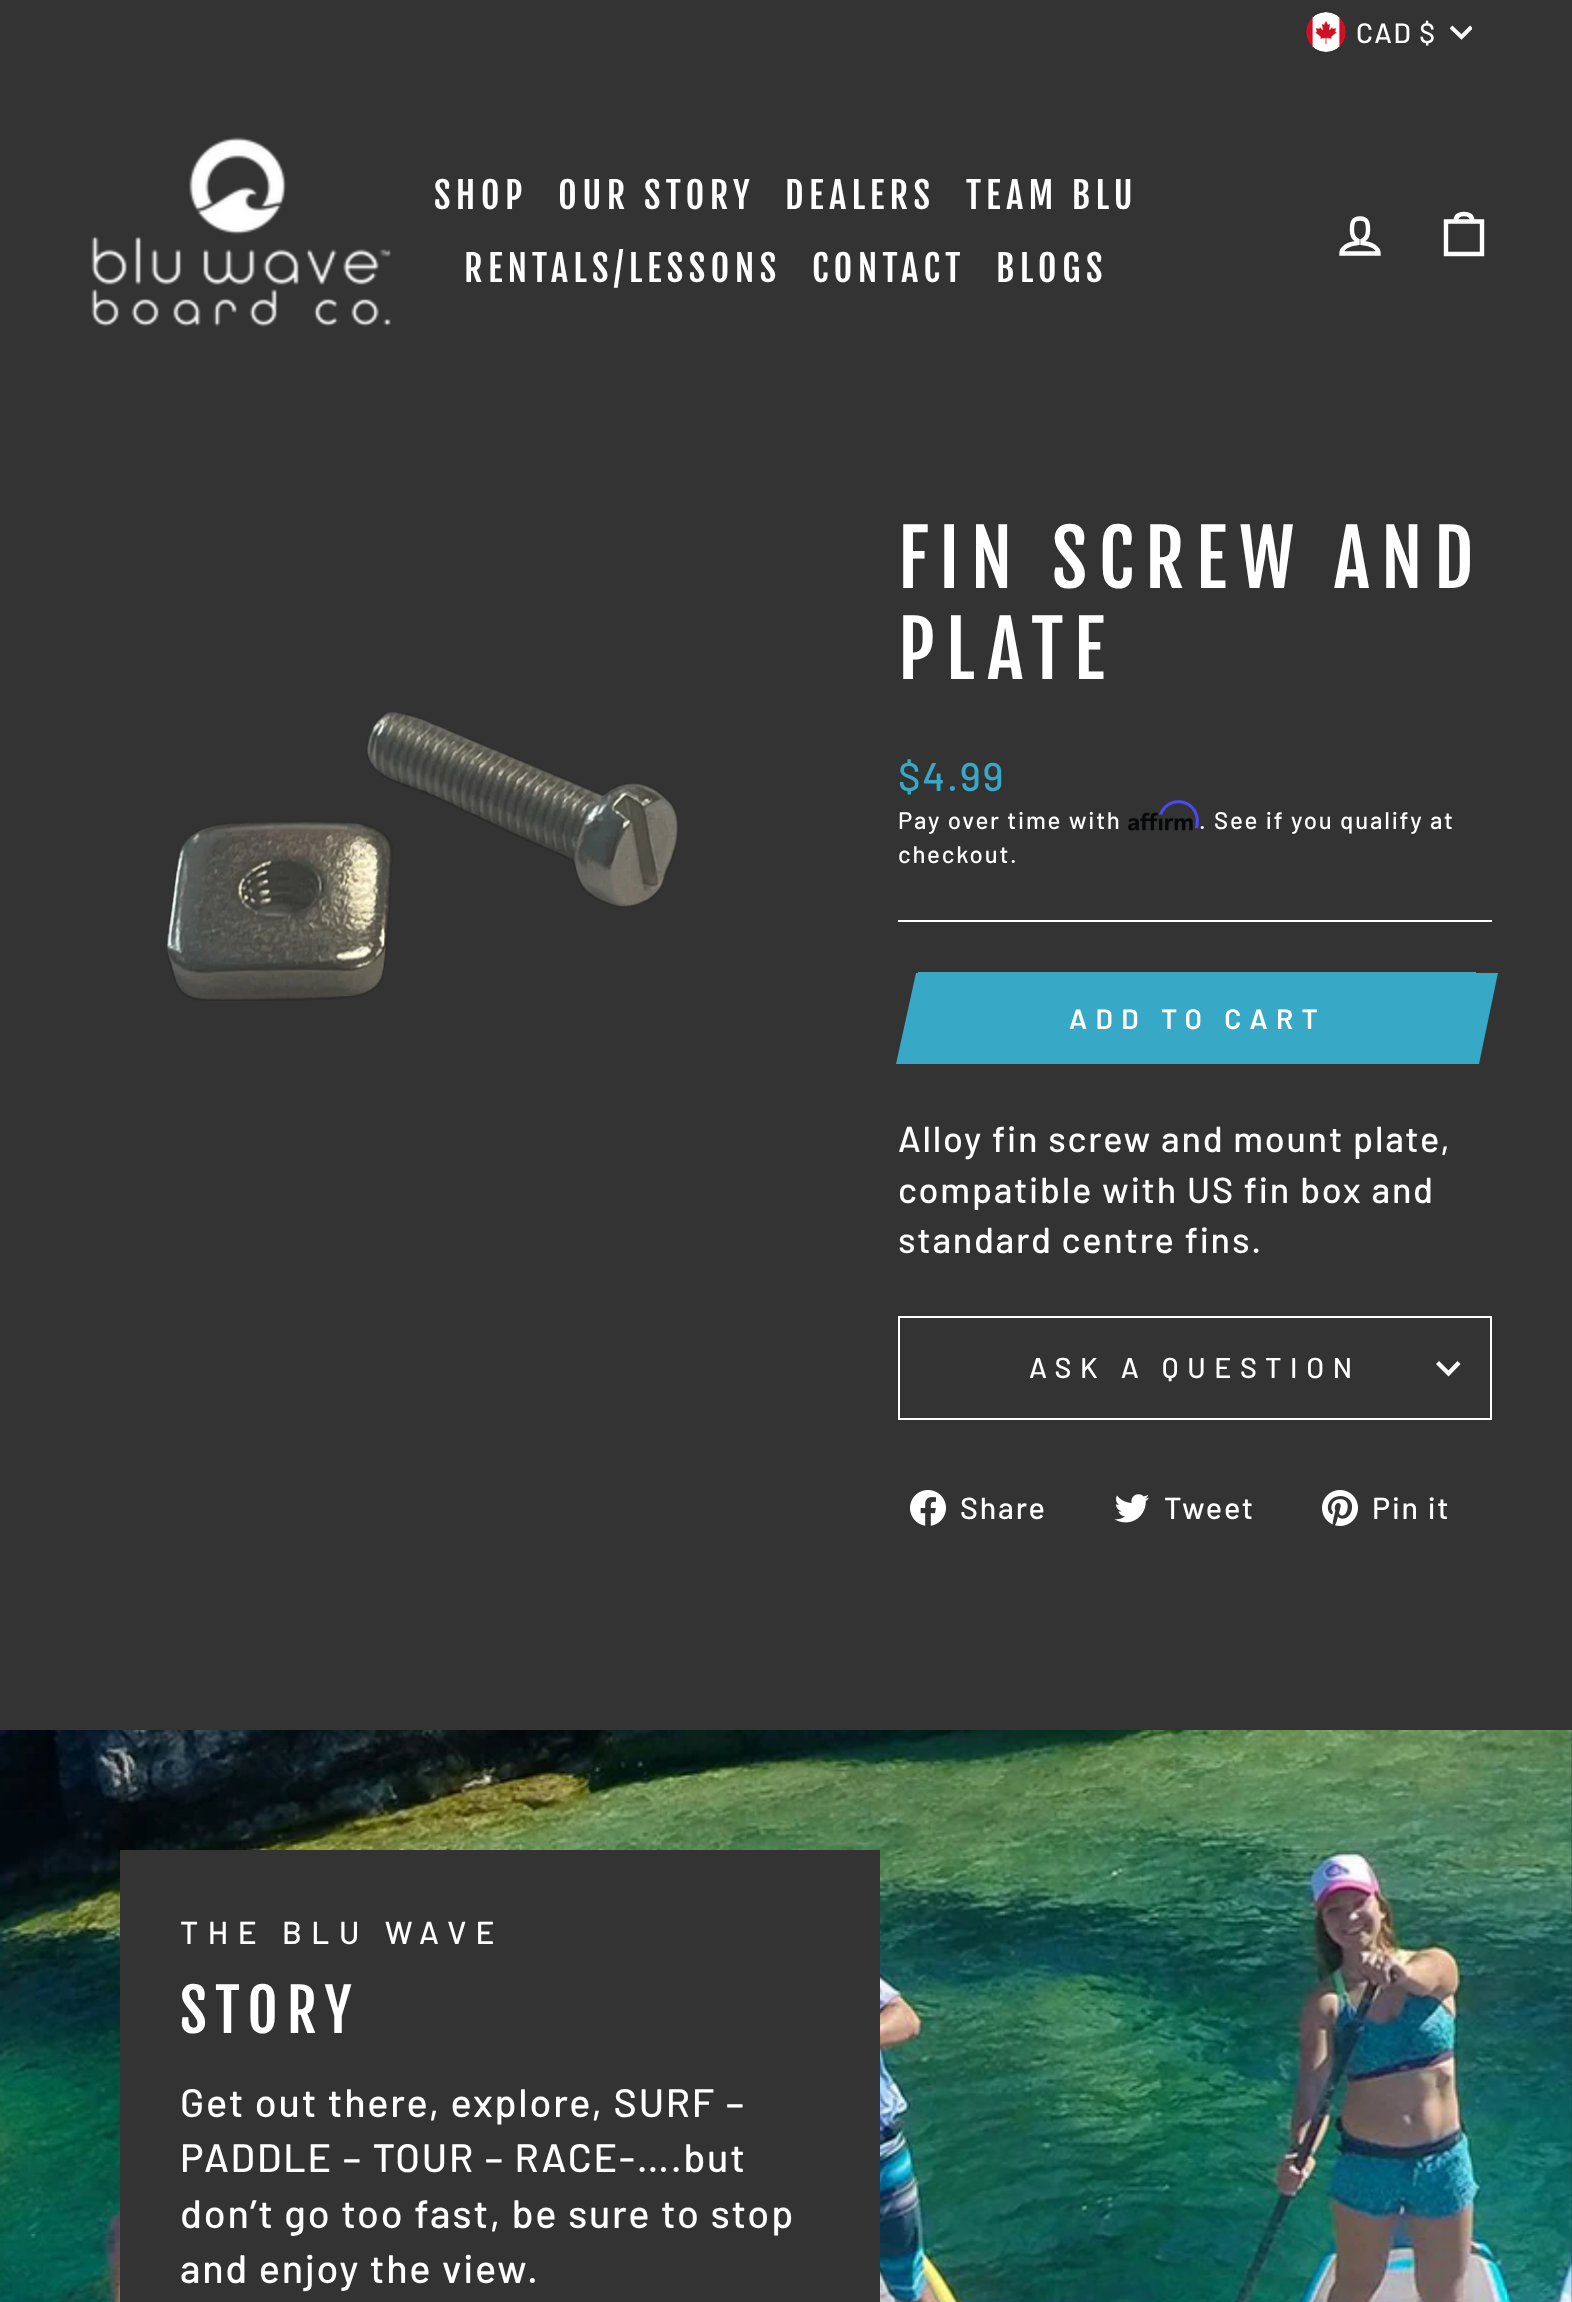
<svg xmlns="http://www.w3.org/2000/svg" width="1572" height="2302">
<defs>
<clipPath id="clip1"><rect x="1450" y="22" width="22" height="22"/></clipPath>
</defs>
<rect width="100%" height="100%" fill="#333"/>
<image x="1306" y="12" width="40" height="40" href="media/1.png"/>
<text x="1356" y="43" style="font-family:Barlow;font-size:28px;font-weight:500;letter-spacing:1.5px;fill:#fff">CAD $</text>
<g clip-path="url(#clip1)">
<path d="M1451 27l10.5 10l10-10" fill="none" stroke="#fff" stroke-width="3.9"/>
</g>
<image x="91" y="137" width="300" height="190" href="media/2.png"/>
<text x="434" y="209" style="font-family:Fjalla One;font-size:36px;letter-spacing:5.4px;fill:#fff">SHOP</text>
<text x="558" y="209" style="font-family:Fjalla One;font-size:36px;letter-spacing:5.4px;fill:#fff">OUR STORY</text>
<text x="785" y="209" style="font-family:Fjalla One;font-size:36px;letter-spacing:5.4px;fill:#fff">DEALERS</text>
<text x="966" y="209" style="font-family:Fjalla One;font-size:36px;letter-spacing:5.4px;fill:#fff">TEAM BLU</text>
<text x="464" y="282" style="font-family:Fjalla One;font-size:36px;letter-spacing:5.4px;fill:#fff">RENTALS/LESSONS</text>
<text x="812" y="282" style="font-family:Fjalla One;font-size:36px;letter-spacing:5.4px;fill:#fff">CONTACT</text>
<text x="996" y="282" style="font-family:Fjalla One;font-size:36px;letter-spacing:5.4px;fill:#fff">BLOGS</text>
<path d="M1362.5 243v-2.5c3-1.5 5.5-5.5 5.5-10c0-6.5 0-12-8-12c-8 0-8 5.5-8 12c0 4.5 2.5 8.5 5.5 10v2.5c-9 .5-16 5-16 10.5h37c0-5.5-7-10-16-10.5z" fill="none" stroke="#fff" stroke-width="4.4"/>
<path d="M1446 221.5h36v32.5h-36zm9.5 .5c0-6.5 4-8 8.5-8c4.5 0 8.5 1.5 8.5 8" fill="none" stroke="#fff" stroke-width="4.4"/>
<image x="166" y="712" width="513" height="289" href="media/3.png"/>
<text x="898" y="588" style="font-family:Fjalla One;font-size:76.5px;letter-spacing:11.5px;fill:#fff">FIN SCREW AND</text>
<text x="898" y="679" style="font-family:Fjalla One;font-size:76.5px;letter-spacing:11.5px;fill:#fff">PLATE</text>
<text x="898" y="791" style="font-family:Barlow;font-size:40px;font-weight:500;letter-spacing:1.8px;fill:#37a8c5">$4.99</text>
<text x="898" y="829" style="font-family:Barlow;font-size:24px;font-weight:500;letter-spacing:1.8px;fill:#fff">Pay over time with</text>
<image x="1128" y="812" width="65" height="19" href="media/5.png"/>
<image x="1159" y="800" width="40" height="29" href="media/4.png"/>
<text x="1199" y="829" style="font-family:Barlow;font-size:24px;font-weight:500;letter-spacing:1.8px;fill:#fff">. See if you qualify at</text>
<text x="898" y="863" style="font-family:Barlow;font-size:24px;font-weight:500;letter-spacing:1.8px;fill:#fff">checkout.</text>
<rect x="898" y="920" width="594" height="2" fill="#fff"/>
<rect x="918" y="972" width="558" height="92" fill="#37a8c5"/>
<path d="M916 973h40l-20 91h-40z" fill="#37a8c5"/>
<text x="1069" y="1029" style="font-family:Barlow;font-size:28px;font-weight:600;letter-spacing:8.4px;fill:#fff">ADD TO CART</text>
<path d="M1458 973h40l-19 91h-40z" fill="#37a8c5"/>
<text x="898" y="1152" style="font-family:Barlow;font-size:36px;font-weight:500;letter-spacing:1.8px;fill:#fff">Alloy fin screw and mount plate,</text>
<text x="898" y="1203" style="font-family:Barlow;font-size:36px;font-weight:500;letter-spacing:1.8px;fill:#fff">compatible with US fin box and</text>
<text x="898" y="1253" style="font-family:Barlow;font-size:36px;font-weight:500;letter-spacing:1.8px;fill:#fff">standard centre fins.</text>
<rect x="898" y="1418" width="594" height="2" fill="#fff"/>
<rect x="898" y="1316" width="594" height="2" fill="#fff"/>
<rect x="1490" y="1316" width="2" height="102" fill="#fff"/>
<rect x="898" y="1316" width="2" height="102" fill="#fff"/>
<text x="1029" y="1378" style="font-family:Barlow;font-size:28.75px;font-weight:500;letter-spacing:8.6px;fill:#fff">ASK A QUESTION</text>
<path d="M1437.5 1362.5l11 11l10.5-11" fill="none" stroke="#fff" stroke-width="4.3"/>
<image x="910" y="1490" width="36" height="36" href="media/6.png"/>
<text x="960" y="1519" style="font-family:Barlow;font-size:30.5px;font-weight:500;letter-spacing:1.8px;fill:#fff">Share</text>
<image x="1114" y="1494" width="35" height="29" href="media/7.png"/>
<text x="1164" y="1519" style="font-family:Barlow;font-size:30.5px;font-weight:500;letter-spacing:1.8px;fill:#fff">Tweet</text>
<image x="1322" y="1490" width="36" height="36" href="media/8.png"/>
<text x="1372" y="1519" style="font-family:Barlow;font-size:30.5px;font-weight:500;letter-spacing:1.8px;fill:#fff">Pin it</text>
<image x="0" y="1730" width="1572" height="572" href="media/9.png"/>
<rect x="120" y="1850" width="760" height="452" fill="#333"/>
<text x="180" y="1944" style="font-family:Barlow;font-size:31.75px;font-weight:500;letter-spacing:9.5px;fill:#fff">THE BLU WAVE</text>
<text x="180" y="2033" style="font-family:Fjalla One;font-size:58.5px;letter-spacing:8.75px;fill:#fff">STORY</text>
<text x="180" y="2117" style="font-family:Barlow;font-size:39.6px;font-weight:500;letter-spacing:1.8px;fill:#fff">Get out there, explore, SURF –</text>
<text x="180" y="2172" style="font-family:Barlow;font-size:39.6px;font-weight:500;letter-spacing:1.8px;fill:#fff">PADDLE – TOUR – RACE-….but</text>
<text x="180" y="2228" style="font-family:Barlow;font-size:39.6px;font-weight:500;letter-spacing:1.8px;fill:#fff">don’t go too fast, be sure to stop</text>
<text x="180" y="2283" style="font-family:Barlow;font-size:39.6px;font-weight:500;letter-spacing:1.8px;fill:#fff">and enjoy the view.</text>
</svg>
